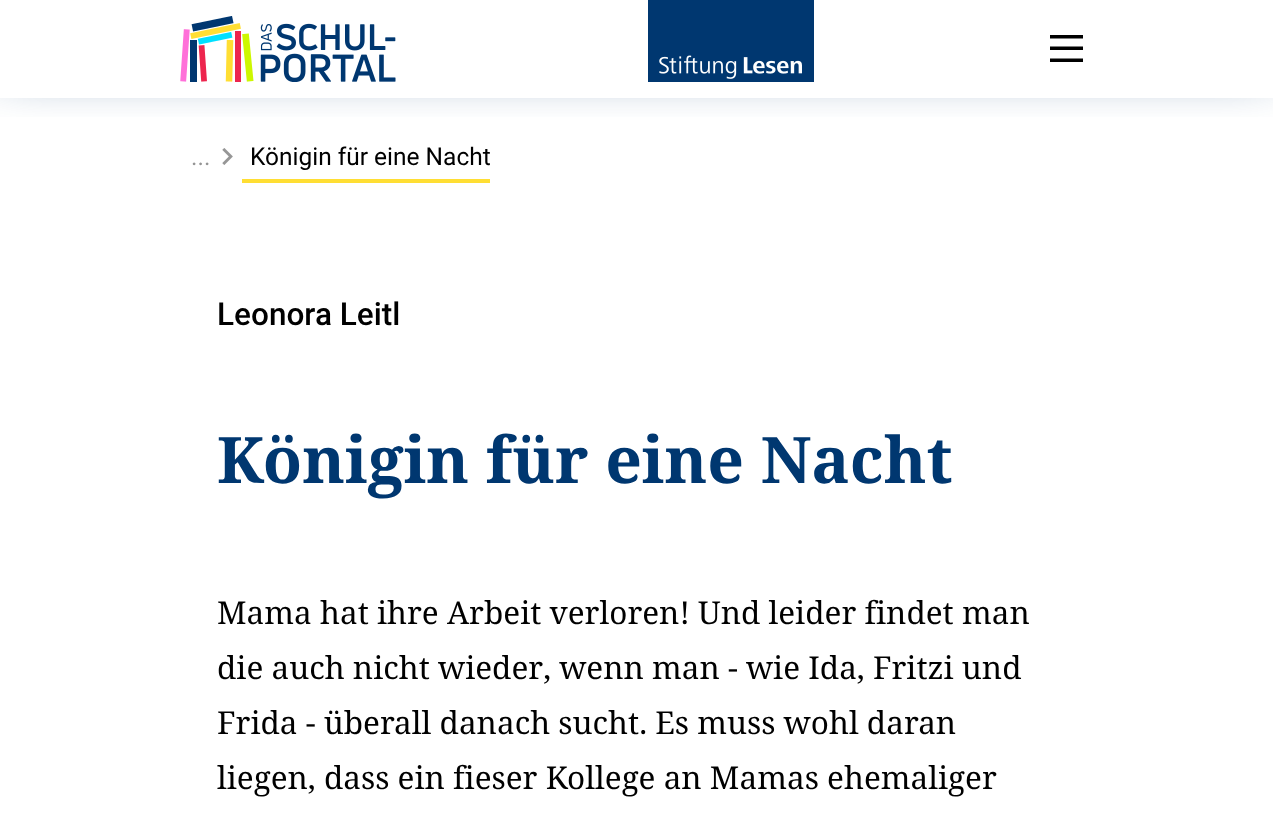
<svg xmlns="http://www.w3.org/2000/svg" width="1273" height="837">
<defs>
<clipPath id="clip1"><rect x="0" y="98" width="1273" height="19"/></clipPath>
<clipPath id="clip2"><rect x="1050" y="35" width="33" height="28"/></clipPath>
</defs>
<rect width="100%" height="100%" fill="#fff"/>
<g clip-path="url(#clip1)">
<rect y="-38" width="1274" height="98" fill="#003770" filter="blur(28px)"/>
</g>
<image x="180" y="16" width="216" height="66" href="media/1.png"/>
<image x="648" y="0" width="166" height="82" href="media/2.png"/>
<g clip-path="url(#clip2)">
<path d="M1050 62h33.5v-3.5h-33.5zm0-12h33.5v-3.5h-33.5zm0-11.5h33.5v-3.5h-33.5z" fill="#000" fill-rule="evenodd"/>
</g>
<image x="222" y="148" width="11" height="17" href="media/3.png"/>
<text x="191" y="165" style="font-family:Roboto;font-size:24.5px;fill:#949494">...</text>
<rect x="242" y="179" width="248" height="4" fill="#ffde33"/>
<text x="250" y="165" style="font-family:Roboto;font-size:24.5px;fill:#000">Königin für eine Nacht</text>
<text x="217" y="325" style="font-family:Roboto;font-size:31.5px;font-weight:500;fill:#000">Leonora Leitl</text>
<text x="217" y="483" style="font-family:Noto Serif;font-size:64.25px;font-weight:bold;fill:#003770">Königin für eine Nacht</text>
<text x="217" y="624" style="font-family:Noto Serif;font-size:31.5px;fill:#000">Mama hat ihre Arbeit verloren! Und leider findet man</text>
<text x="217" y="679" style="font-family:Noto Serif;font-size:31.5px;fill:#000">die auch nicht wieder, wenn man - wie Ida, Fritzi und</text>
<text x="217" y="734" style="font-family:Noto Serif;font-size:31.5px;fill:#000">Frida - überall danach sucht. Es muss wohl daran</text>
<text x="217" y="789" style="font-family:Noto Serif;font-size:31.5px;fill:#000">liegen, dass ein fieser Kollege an Mamas ehemaliger</text>
</svg>
